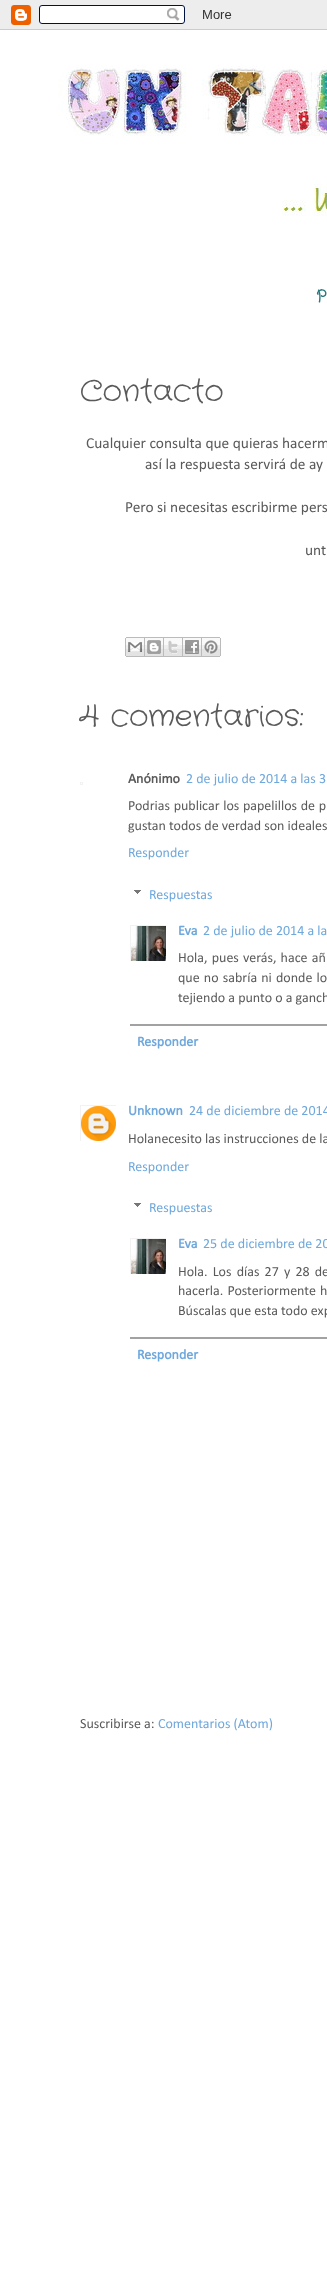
<svg xmlns="http://www.w3.org/2000/svg" width="327" height="2290">
<defs>
<clipPath id="clip1"><rect x="130" y="925" width="36" height="36"/></clipPath>
<clipPath id="clip2"><rect x="80" y="1105" width="36" height="36"/></clipPath>
<clipPath id="clip3"><rect x="130" y="1238" width="36" height="36"/></clipPath>
</defs>
<rect width="100%" height="100%" fill="#fff"/>
<image x="0" y="400" width="40" height="1890" href="media/1.png"/>
<image x="0" y="0" width="327" height="30" href="media/2.png"/>
<image x="0" y="30" width="40" height="370" href="media/3.png"/>
<image x="58" y="65" width="269" height="151" href="media/4.png"/>
<text x="316" y="301" style="font-family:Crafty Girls;font-size:16px;font-weight:bold;fill:#26797f">P</text>
<text x="80" y="400" style="font-family:Crafty Girls;font-size:30px;fill:#5a5a5a">Contacto</text>
<text x="86" y="448" style="font-family:Calibri;font-size:15.4px;fill:#5a5a5a">Cualquier consulta que quieras hacerm</text>
<text x="145" y="469" style="font-family:Calibri;font-size:15.4px;fill:#5a5a5a">así la respuesta servirá de ay</text>
<text x="125" y="512" style="font-family:Calibri;font-size:15.4px;fill:#5a5a5a">Pero si necesitas escribirme pers</text>
<text x="305" y="555" style="font-family:Calibri;font-size:15.4px;fill:#5a5a5a">unt</text>
<image x="125" y="637" width="20" height="20" href="media/5.png"/>
<image x="145" y="637" width="19" height="20" href="media/6.png"/>
<image x="164" y="637" width="19" height="20" href="media/7.png"/>
<image x="183" y="637" width="19" height="20" href="media/8.png"/>
<image x="202" y="637" width="19" height="20" href="media/9.png"/>
<text x="80" y="725" style="font-family:Crafty Girls;font-size:30px;fill:#5a5a5a">4 comentarios:</text>
<rect x="80.5" y="782.5" width="2" height="2" fill="none" stroke="#f2f2f2"/>
<text x="128" y="783" style="font-family:Calibri;font-size:14px;font-weight:bold;fill:#5a5a5a">Anónimo</text>
<text x="186" y="783" style="font-family:Calibri;font-size:14px;fill:#6fa8dc">2 de julio de 2014 a las 3</text>
<text x="128" y="810" word-spacing="0.5" style="font-family:Calibri;font-size:14px;fill:#5a5a5a">Podrias publicar los papelillos de p</text>
<text x="128" y="830" style="font-family:Calibri;font-size:14px;fill:#5a5a5a">gustan todos de verdad son ideales</text>
<text x="128" y="857" style="font-family:Calibri;font-size:14px;fill:#6fa8dc">Responder</text>
<image x="134" y="890" width="7" height="4" href="media/10.png"/>
<text x="149" y="899" style="font-family:Calibri;font-size:14px;fill:#6fa8dc">Respuestas</text>
<g clip-path="url(#clip1)">
<rect x="130.5" y="925.5" width="37" height="37" fill="none" stroke="#f2f2f2"/>
</g>
<image x="131" y="926" width="35" height="35" href="media/11.png"/>
<text x="178" y="935" style="font-family:Calibri;font-size:14px;font-weight:bold;fill:#6fa8dc">Eva</text>
<text x="203" y="935" style="font-family:Calibri;font-size:14px;fill:#6fa8dc">2 de julio de 2014 a la</text>
<text x="178" y="962" word-spacing="1" style="font-family:Calibri;font-size:14px;fill:#5a5a5a">Hola, pues verás, hace añ</text>
<text x="178" y="982" word-spacing="1" style="font-family:Calibri;font-size:14px;fill:#5a5a5a">que no sabría ni donde lo</text>
<text x="178" y="1002" style="font-family:Calibri;font-size:14px;fill:#5a5a5a">tejiendo a punto o a ganch</text>
<rect x="130" y="1024" width="197" height="2" fill="#a2a2a2"/>
<text x="137" y="1046" style="font-family:Calibri;font-size:14px;font-weight:bold;fill:#6fa8dc">Responder</text>
<g clip-path="url(#clip2)">
<rect x="80.5" y="1105.5" width="36" height="36" fill="none" stroke="#f2f2f2"/>
</g>
<image x="81" y="1106" width="35" height="35" href="media/12.png"/>
<text x="128" y="1115" style="font-family:Calibri;font-size:14px;font-weight:bold;fill:#6fa8dc">Unknown</text>
<text x="189" y="1115" style="font-family:Calibri;font-size:14px;fill:#6fa8dc">24 de diciembre de 2014</text>
<text x="128" y="1143" style="font-family:Calibri;font-size:14px;fill:#5a5a5a">Holanecesito las instrucciones de la</text>
<text x="128" y="1171" style="font-family:Calibri;font-size:14px;fill:#6fa8dc">Responder</text>
<image x="134" y="1203" width="7" height="4" href="media/10.png"/>
<text x="149" y="1212" style="font-family:Calibri;font-size:14px;fill:#6fa8dc">Respuestas</text>
<g clip-path="url(#clip3)">
<rect x="130.5" y="1238.5" width="37" height="37" fill="none" stroke="#f2f2f2"/>
</g>
<image x="131" y="1239" width="35" height="35" href="media/11.png"/>
<text x="178" y="1248" style="font-family:Calibri;font-size:14px;font-weight:bold;fill:#6fa8dc">Eva</text>
<text x="203" y="1248" style="font-family:Calibri;font-size:14px;fill:#6fa8dc">25 de diciembre de 20</text>
<text x="178" y="1276" word-spacing="2" style="font-family:Calibri;font-size:14px;fill:#5a5a5a">Hola. Los días 27 y 28 de</text>
<text x="178" y="1295" word-spacing="1" style="font-family:Calibri;font-size:14px;fill:#5a5a5a">hacerla. Posteriormente h</text>
<text x="178" y="1315" style="font-family:Calibri;font-size:14px;fill:#5a5a5a">Búscalas que esta todo exp</text>
<rect x="130" y="1337" width="197" height="2" fill="#a2a2a2"/>
<text x="137" y="1359" style="font-family:Calibri;font-size:14px;font-weight:bold;fill:#6fa8dc">Responder</text>
<text x="80" y="1728" style="font-family:Calibri;font-size:14px;fill:#5a5a5a">Suscribirse a:</text>
<text x="158" y="1728" style="font-family:Calibri;font-size:14px;fill:#6fa8dc">Comentarios (Atom)</text>
</svg>
